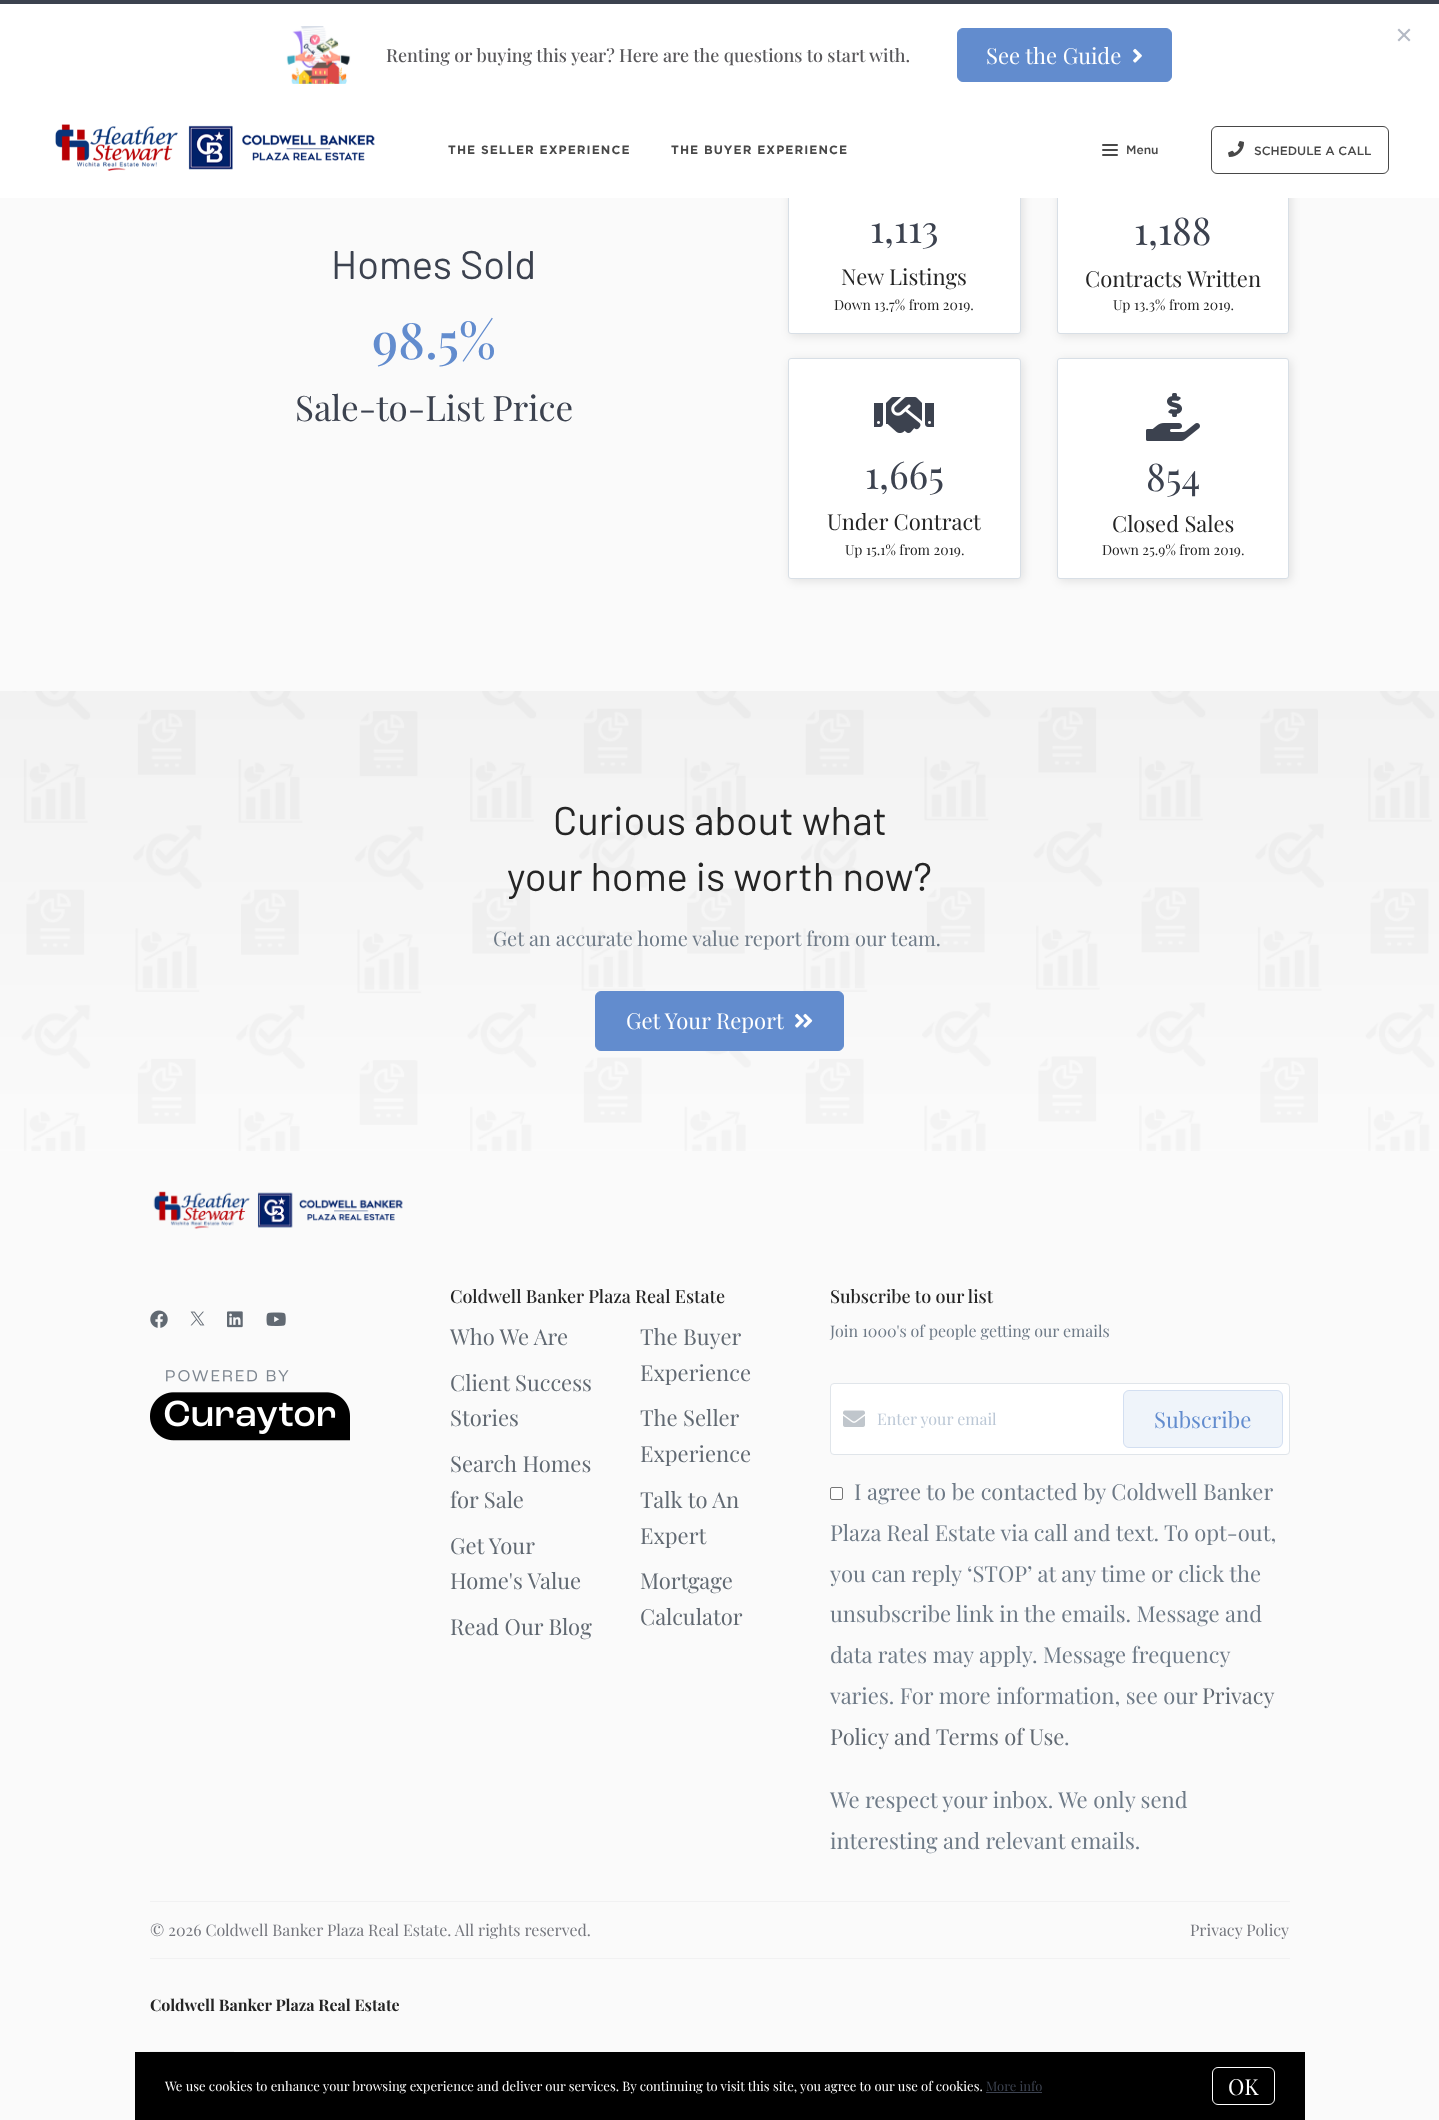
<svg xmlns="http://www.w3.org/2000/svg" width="1439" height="2120">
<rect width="100%" height="100%" fill="#fafafa"/>
<rect width="1439" height="4" fill="#3c424f"/>
<rect x="790" y="115" width="233" height="221" rx="3" fill="#0000001a" filter="blur(5px)"/>
<rect x="788.5" y="113.5" width="232" height="220" rx="2.5" fill="#fff" stroke="#d8dfe6"/>
<rect x="1059" y="115" width="232" height="221" rx="3" fill="#0000001a" filter="blur(5px)"/>
<rect x="1057.5" y="113.5" width="231" height="220" rx="2.5" fill="#fff" stroke="#d8dfe6"/>
<rect y="4" width="1439" height="194" fill="#fff"/>
<path d="M1399 28.5l11.5 11.5l-1.5 1.5l-11.5-11.5z" fill="#b3b9c4"/>
<path d="M1397.5 40l11.5-11.5l1.5 1.5l-11.5 11.5z" fill="#b3b9c4"/>
<image x="286" y="26" width="65" height="58" href="media/1.png"/>
<text x="386" y="62" style="font-family:Playfair Display;font-size:18px;font-weight:500;fill:#59585b">Renting or buying this year? Here are the questions to start with.</text>
<rect x="957.5" y="28.5" width="214" height="53" rx="5.5" fill="#628cce" stroke="#628cce"/>
<text x="986" y="64" style="font-family:Playfair Display;font-size:22px;fill:#fff">See the Guide</text>
<image x="1133" y="48" width="9" height="15" href="media/2.png"/>
<image x="55" y="124" width="320" height="47" href="media/3.png"/>
<text x="448" y="154" style="font-family:Gotham;font-size:12px;font-weight:bold;letter-spacing:1.1px;fill:#484848">THE SELLER EXPERIENCE</text>
<text x="671" y="154" style="font-family:Gotham;font-size:12px;font-weight:bold;letter-spacing:1.1px;fill:#484848">THE BUYER EXPERIENCE</text>
<rect x="1102" y="144" width="16" height="2" rx="1" fill="#484848"/>
<rect x="1102" y="149" width="16" height="2" rx="1" fill="#484848"/>
<rect x="1102" y="154" width="16" height="2" rx="1" fill="#484848"/>
<text x="1126" y="154" style="font-family:Gotham;font-size:12px;font-weight:500;fill:#484848">Menu</text>
<rect x="1211.5" y="126.5" width="177" height="47" rx="5.5" fill="none" stroke="#484848"/>
<image x="1228" y="141" width="16" height="16" href="media/4.png"/>
<text x="1254" y="155" style="font-family:Gotham;font-size:12px;font-weight:500;fill:#484848">SCHEDULE A CALL</text>
<text x="331" y="279" style="font-family:Barlow;font-size:40px;fill:#3c424f">Homes Sold</text>
<text x="372" y="359" style="font-family:Playfair Display;font-size:50px;font-weight:500;fill:#628cce">98.5%</text>
<text x="295" y="421" style="font-family:Playfair Display;font-size:35px;fill:#3c424f">Sale-to-List Price</text>
<text x="870" y="243" style="font-family:Playfair Display;font-size:38px;fill:#3c424f">1,113</text>
<text x="841" y="285" style="font-family:Playfair Display;font-size:22px;fill:#252525">New Listings</text>
<text x="834" y="310" style="font-family:Playfair Display;font-size:14px;fill:#252525">Down 13.7% from 2019.</text>
<rect x="790" y="360" width="233" height="221" rx="3" fill="#0000001a" filter="blur(5px)"/>
<rect x="788.5" y="358.5" width="232" height="220" rx="2.5" fill="#fff" stroke="#d8dfe6"/>
<image x="874" y="397" width="60" height="36" href="media/5.png"/>
<text x="865" y="489" style="font-family:Playfair Display;font-size:38px;fill:#3c424f">1,665</text>
<text x="827" y="530" style="font-family:Playfair Display;font-size:22px;fill:#252525">Under Contract</text>
<text x="845" y="555" style="font-family:Playfair Display;font-size:14px;fill:#252525">Up 15.1% from 2019.</text>
<text x="1134" y="245" style="font-family:Playfair Display;font-size:38px;fill:#3c424f">1,188</text>
<text x="1085" y="287" style="font-family:Playfair Display;font-size:22px;fill:#252525">Contracts Written</text>
<text x="1113" y="310" style="font-family:Playfair Display;font-size:14px;fill:#252525">Up 13.3% from 2019.</text>
<rect x="1059" y="360" width="232" height="221" rx="3" fill="#0000001a" filter="blur(5px)"/>
<rect x="1057.5" y="358.5" width="231" height="220" rx="2.5" fill="#fff" stroke="#d8dfe6"/>
<image x="1146" y="393" width="54" height="48" href="media/6.png"/>
<text x="1146" y="491" style="font-family:Playfair Display;font-size:38px;fill:#3c424f">854</text>
<text x="1112" y="532" style="font-family:Playfair Display;font-size:22px;fill:#252525">Closed Sales</text>
<text x="1102" y="555" style="font-family:Playfair Display;font-size:14px;fill:#252525">Down 25.9% from 2019.</text>
<image x="0" y="691" width="1439" height="460" href="media/7.png"/>
<text x="553" y="835" style="font-family:Barlow;font-size:40px;fill:#252525">Curious about what</text>
<text x="507" y="891" style="font-family:Barlow;font-size:40px;fill:#252525">your home is worth now?</text>
<text x="493" y="946" style="font-family:Playfair Display;font-size:20px;fill:#6e7a87">Get an accurate home value report from our team.</text>
<rect x="595.5" y="991.5" width="248" height="59" rx="5.5" fill="#628cce" stroke="#628cce"/>
<text x="626" y="1029" style="font-family:Playfair Display;font-size:22px;fill:#fff">Get Your Report</text>
<image x="795" y="1013" width="18" height="15" href="media/8.png"/>
<image x="153" y="1191" width="250" height="38" href="media/9.png"/>
<image x="150" y="1310" width="18" height="18" href="media/10.png"/>
<image x="190" y="1311" width="15" height="15" href="media/11.png"/>
<image x="227" y="1311" width="16" height="17" href="media/12.png"/>
<image x="266" y="1312" width="20" height="14" href="media/13.png"/>
<image x="150" y="1370" width="200" height="71" href="media/14.png"/>
<text x="450" y="1303" style="font-family:Playfair Display;font-size:18px;font-weight:500;fill:#252525">Coldwell Banker Plaza Real Estate</text>
<text x="450" y="1345" style="font-family:Playfair Display;font-size:22px;fill:#616972">Who We Are</text>
<text x="640" y="1345" style="font-family:Playfair Display;font-size:22px;fill:#616972">The Buyer</text>
<text x="640" y="1381" style="font-family:Playfair Display;font-size:22px;fill:#616972">Experience</text>
<text x="450" y="1391" style="font-family:Playfair Display;font-size:22px;fill:#616972">Client Success</text>
<text x="450" y="1426" style="font-family:Playfair Display;font-size:22px;fill:#616972">Stories</text>
<text x="640" y="1426" style="font-family:Playfair Display;font-size:22px;fill:#616972">The Seller</text>
<text x="640" y="1462" style="font-family:Playfair Display;font-size:22px;fill:#616972">Experience</text>
<text x="450" y="1472" style="font-family:Playfair Display;font-size:22px;fill:#616972">Search Homes</text>
<text x="450" y="1508" style="font-family:Playfair Display;font-size:22px;fill:#616972">for Sale</text>
<text x="640" y="1508" style="font-family:Playfair Display;font-size:22px;fill:#616972">Talk to An</text>
<text x="640" y="1544" style="font-family:Playfair Display;font-size:22px;fill:#616972">Expert</text>
<text x="450" y="1554" style="font-family:Playfair Display;font-size:22px;fill:#616972">Get Your</text>
<text x="450" y="1589" style="font-family:Playfair Display;font-size:22px;fill:#616972">Home's Value</text>
<text x="640" y="1589" style="font-family:Playfair Display;font-size:22px;fill:#616972">Mortgage</text>
<text x="640" y="1625" style="font-family:Playfair Display;font-size:22px;fill:#616972">Calculator</text>
<text x="450" y="1635" style="font-family:Playfair Display;font-size:22px;fill:#616972">Read Our Blog</text>
<text x="830" y="1303" style="font-family:Playfair Display;font-size:18px;font-weight:500;fill:#252525">Subscribe to our list</text>
<text x="830" y="1337" style="font-family:Playfair Display;font-size:16px;fill:#6e7a87">Join 1000's of people getting our emails</text>
<rect x="830.5" y="1383.5" width="459" height="71" rx="3.5" fill="#fff" stroke="#e0e5ea"/>
<image x="843" y="1410" width="22" height="17" href="media/15.png"/>
<text x="877" y="1425" style="font-family:Playfair Display;font-size:16px;fill:#bcc8d6">Enter your email</text>
<rect x="1123" y="1390" width="160" height="58" rx="6" fill="#eff4fa"/>
<rect x="1123.5" y="1390.5" width="159" height="57" rx="5.5" fill="none" stroke="#628cce33"/>
<text x="1154" y="1428" style="font-family:Playfair Display;font-size:22px;fill:#628cce">Subscribe</text>
<rect x="830.5" y="1487.5" width="12" height="12" rx="1.5" fill="#fff" stroke="#767676"/>
<text x="854" y="1500" style="font-family:Playfair Display;font-size:22px;fill:#6e7a87">I agree to be contacted by Coldwell Banker</text>
<text x="830" y="1541" style="font-family:Playfair Display;font-size:22px;fill:#6e7a87">Plaza Real Estate via call and text. To opt-out,</text>
<text x="830" y="1582" style="font-family:Playfair Display;font-size:22px;fill:#6e7a87">you can reply ‘STOP’ at any time or click the</text>
<text x="830" y="1622" style="font-family:Playfair Display;font-size:22px;fill:#6e7a87">unsubscribe link in the emails. Message and</text>
<text x="830" y="1663" style="font-family:Playfair Display;font-size:22px;fill:#6e7a87">data rates may apply. Message frequency</text>
<text x="830" y="1704" style="font-family:Playfair Display;font-size:22px;fill:#6e7a87">varies. For more information, see our</text>
<text x="1202" y="1704" style="font-family:Playfair Display;font-size:22px;fill:#616972">Privacy</text>
<text x="830" y="1745" style="font-family:Playfair Display;font-size:22px;fill:#616972">Policy and Terms of Use</text>
<text x="1064" y="1745" style="font-family:Playfair Display;font-size:22px;fill:#6e7a87">.</text>
<text x="830" y="1808" style="font-family:Playfair Display;font-size:22px;fill:#6e7a87">We respect your inbox. We only send</text>
<text x="830" y="1849" style="font-family:Playfair Display;font-size:22px;fill:#6e7a87">interesting and relevant emails.</text>
<rect x="150" y="1901" width="1140" height="1" fill="#f1f1f2"/>
<text x="150" y="1936" style="font-family:Playfair Display;font-size:16px;fill:#74767d">© 2026 Coldwell Banker Plaza Real Estate. All rights reserved.</text>
<text x="1190" y="1936" style="font-family:Playfair Display;font-size:16px;fill:#74767d">Privacy Policy</text>
<rect x="150" y="1958" width="1140" height="1" fill="#f1f1f2"/>
<text x="150" y="2011" style="font-family:Playfair Display;font-size:16px;font-weight:bold;fill:#252525">Coldwell Banker Plaza Real Estate</text>
<rect x="150" y="2051" width="84" height="1" fill="#f1f1f2"/>
<rect x="135" y="2052" width="1170" height="68" fill="#000"/>
<text x="165" y="2091" style="font-family:Playfair Display;font-size:13px;fill:#fff">We use cookies to enhance your browsing experience and deliver our services. By continuing to visit this site, you agree to our use of cookies.</text>
<text x="986" y="2091" style="font-family:Playfair Display;font-size:13px;fill:#3c424f">More info</text>
<rect x="986" y="2092" width="56" height="1" fill="#3c424f"/>
<rect x="1212.5" y="2067.5" width="62" height="37" rx="5.5" fill="none" stroke="#fff"/>
<text x="1228" y="2095" style="font-family:Playfair Display;font-size:22px;fill:#fff">OK</text>
</svg>
